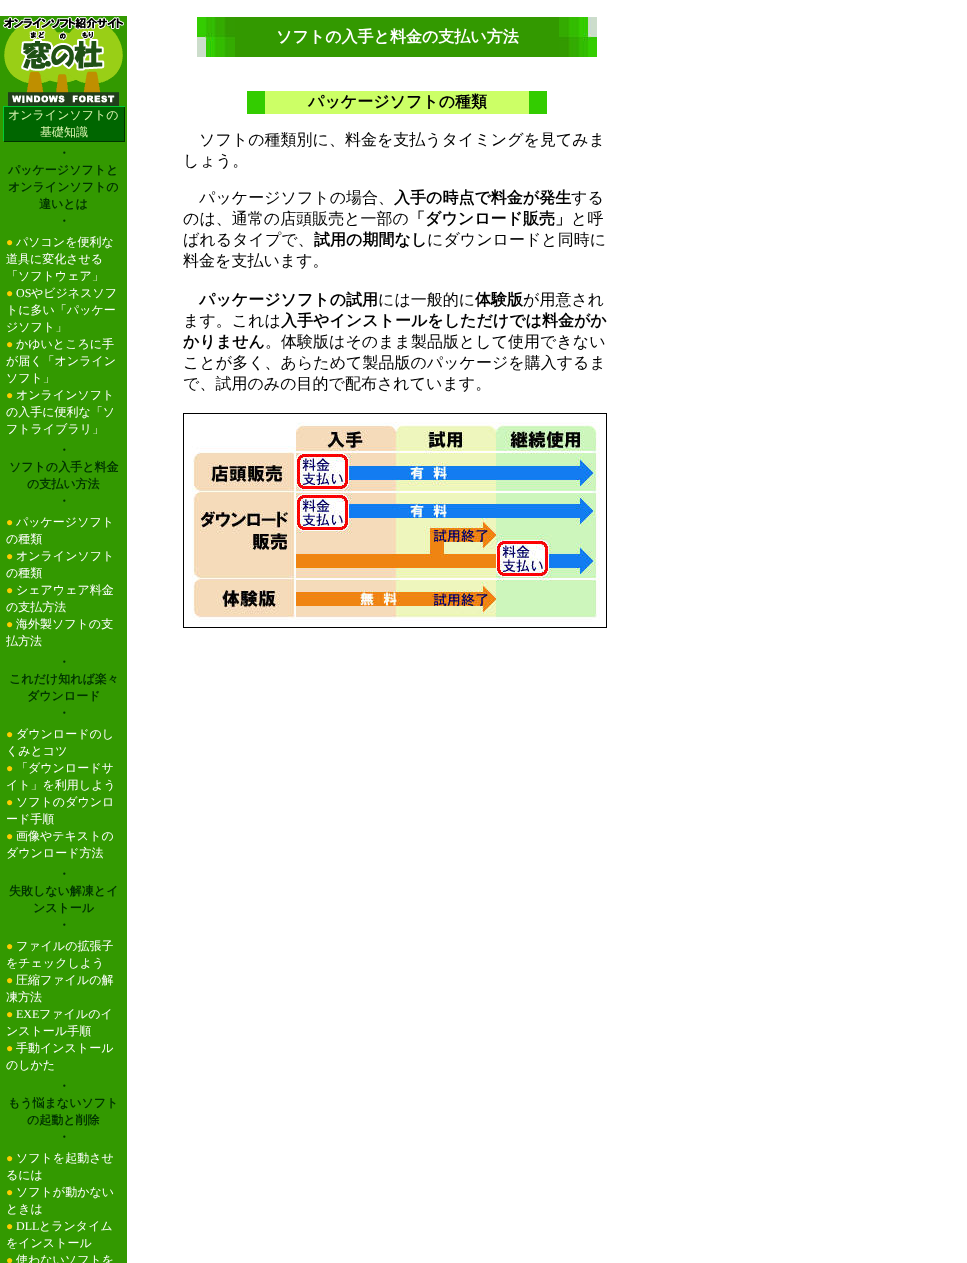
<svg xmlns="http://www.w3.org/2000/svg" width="967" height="1263">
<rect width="100%" height="100%" fill="#fff"/>
<rect y="16" width="127" height="1247" fill="#390"/>
<image x="2" y="17" width="123" height="89" href="media/1.png"/>
<rect x="3" y="106" width="122" height="1" fill="#0c3"/>
<rect x="3" y="107" width="1" height="34" fill="#0c3"/>
<rect x="4" y="107" width="120" height="34" fill="#060"/>
<text x="8" y="119" style="font-family:WenQuanYi Zen Hei;font-size:12px;font-weight:500;fill:#dcf4b1">オンラインソフトの</text>
<text x="40" y="136" style="font-family:WenQuanYi Zen Hei;font-size:12px;font-weight:500;fill:#dcf4b1">基礎知識</text>
<rect x="124" y="107" width="1" height="34" fill="#030"/>
<rect x="4" y="141" width="121" height="1" fill="#030"/>
<text x="58" y="157" style="font-family:WenQuanYi Zen Hei;font-size:12px;font-weight:bold;fill:#030">・</text>
<text x="8" y="174" style="font-family:WenQuanYi Zen Hei;font-size:12px;font-weight:bold;fill:#030">パッケージソフトと</text>
<text x="8" y="191" style="font-family:WenQuanYi Zen Hei;font-size:12px;font-weight:bold;fill:#030">オンラインソフトの</text>
<text x="39" y="208" style="font-family:WenQuanYi Zen Hei;font-size:12px;font-weight:bold;fill:#030">違いとは</text>
<text x="58" y="225" style="font-family:WenQuanYi Zen Hei;font-size:12px;font-weight:bold;fill:#030">・</text>
<text x="6" y="246" style="font-family:Liberation Serif;font-size:12px;fill:#fc0">●</text>
<text x="16" y="246" style="font-family:WenQuanYi Zen Hei;font-size:12px;font-weight:500;fill:#fff">パソコンを便利な</text>
<text x="6" y="263" style="font-family:WenQuanYi Zen Hei;font-size:12px;font-weight:500;fill:#fff">道具に変化させる</text>
<text x="6" y="280" style="font-family:WenQuanYi Zen Hei;font-size:12px;font-weight:500;fill:#fff">「ソフトウェア」</text>
<text x="6" y="297" style="font-family:Liberation Serif;font-size:12px;fill:#fc0">●</text>
<text x="16" y="297" style="font-family:Liberation Serif;font-size:12px;fill:#fff">OS</text>
<text x="31" y="297" style="font-family:WenQuanYi Zen Hei;font-size:12px;font-weight:500;fill:#fff">やビジネスソフ</text>
<text x="6" y="314" style="font-family:WenQuanYi Zen Hei;font-size:12px;font-weight:500;fill:#fff">トに多い「パッケー</text>
<text x="6" y="331" style="font-family:WenQuanYi Zen Hei;font-size:12px;font-weight:500;fill:#fff">ジソフト」</text>
<text x="6" y="348" style="font-family:Liberation Serif;font-size:12px;fill:#fc0">●</text>
<text x="16" y="348" style="font-family:WenQuanYi Zen Hei;font-size:12px;font-weight:500;fill:#fff">かゆいところに手</text>
<text x="6" y="365" style="font-family:WenQuanYi Zen Hei;font-size:12px;font-weight:500;fill:#fff">が届く「オンライン</text>
<text x="6" y="382" style="font-family:WenQuanYi Zen Hei;font-size:12px;font-weight:500;fill:#fff">ソフト」</text>
<text x="6" y="399" style="font-family:Liberation Serif;font-size:12px;fill:#fc0">●</text>
<text x="16" y="399" style="font-family:WenQuanYi Zen Hei;font-size:12px;font-weight:500;fill:#fff">オンラインソフト</text>
<text x="6" y="416" style="font-family:WenQuanYi Zen Hei;font-size:12px;font-weight:500;fill:#fff">の入手に便利な「ソ</text>
<text x="6" y="433" style="font-family:WenQuanYi Zen Hei;font-size:12px;font-weight:500;fill:#fff">フトライブラリ」</text>
<text x="58" y="454" style="font-family:WenQuanYi Zen Hei;font-size:12px;font-weight:bold;fill:#030">・</text>
<text x="9" y="471" style="font-family:WenQuanYi Zen Hei;font-size:12px;font-weight:bold;fill:#030">ソフトの入手と料金</text>
<text x="27" y="488" style="font-family:WenQuanYi Zen Hei;font-size:12px;font-weight:bold;fill:#030">の支払い方法</text>
<text x="58" y="505" style="font-family:WenQuanYi Zen Hei;font-size:12px;font-weight:bold;fill:#030">・</text>
<text x="6" y="526" style="font-family:Liberation Serif;font-size:12px;fill:#fc0">●</text>
<text x="16" y="526" style="font-family:WenQuanYi Zen Hei;font-size:12px;font-weight:500;fill:#fff">パッケージソフト</text>
<text x="6" y="543" style="font-family:WenQuanYi Zen Hei;font-size:12px;font-weight:500;fill:#fff">の種類</text>
<text x="6" y="560" style="font-family:Liberation Serif;font-size:12px;fill:#fc0">●</text>
<text x="16" y="560" style="font-family:WenQuanYi Zen Hei;font-size:12px;font-weight:500;fill:#fff">オンラインソフト</text>
<text x="6" y="577" style="font-family:WenQuanYi Zen Hei;font-size:12px;font-weight:500;fill:#fff">の種類</text>
<text x="6" y="594" style="font-family:Liberation Serif;font-size:12px;fill:#fc0">●</text>
<text x="16" y="594" style="font-family:WenQuanYi Zen Hei;font-size:12px;font-weight:500;fill:#fff">シェアウェア料金</text>
<text x="6" y="611" style="font-family:WenQuanYi Zen Hei;font-size:12px;font-weight:500;fill:#fff">の支払方法</text>
<text x="6" y="628" style="font-family:Liberation Serif;font-size:12px;fill:#fc0">●</text>
<text x="16" y="628" style="font-family:WenQuanYi Zen Hei;font-size:12px;font-weight:500;fill:#fff">海外製ソフトの支</text>
<text x="6" y="645" style="font-family:WenQuanYi Zen Hei;font-size:12px;font-weight:500;fill:#fff">払方法</text>
<text x="58" y="666" style="font-family:WenQuanYi Zen Hei;font-size:12px;font-weight:bold;fill:#030">・</text>
<text x="9" y="683" style="font-family:WenQuanYi Zen Hei;font-size:12px;font-weight:bold;fill:#030">これだけ知れば楽々</text>
<text x="27" y="700" style="font-family:WenQuanYi Zen Hei;font-size:12px;font-weight:bold;fill:#030">ダウンロード</text>
<text x="58" y="717" style="font-family:WenQuanYi Zen Hei;font-size:12px;font-weight:bold;fill:#030">・</text>
<text x="6" y="738" style="font-family:Liberation Serif;font-size:12px;fill:#fc0">●</text>
<text x="16" y="738" style="font-family:WenQuanYi Zen Hei;font-size:12px;font-weight:500;fill:#fff">ダウンロードのし</text>
<text x="6" y="755" style="font-family:WenQuanYi Zen Hei;font-size:12px;font-weight:500;fill:#fff">くみとコツ</text>
<text x="6" y="772" style="font-family:Liberation Serif;font-size:12px;fill:#fc0">●</text>
<text x="16" y="772" style="font-family:WenQuanYi Zen Hei;font-size:12px;font-weight:500;fill:#fff">「ダウンロードサ</text>
<text x="6" y="789" style="font-family:WenQuanYi Zen Hei;font-size:12px;font-weight:500;fill:#fff">イト」を利用しよう</text>
<text x="6" y="806" style="font-family:Liberation Serif;font-size:12px;fill:#fc0">●</text>
<text x="16" y="806" style="font-family:WenQuanYi Zen Hei;font-size:12px;font-weight:500;fill:#fff">ソフトのダウンロ</text>
<text x="6" y="823" style="font-family:WenQuanYi Zen Hei;font-size:12px;font-weight:500;fill:#fff">ード手順</text>
<text x="6" y="840" style="font-family:Liberation Serif;font-size:12px;fill:#fc0">●</text>
<text x="16" y="840" style="font-family:WenQuanYi Zen Hei;font-size:12px;font-weight:500;fill:#fff">画像やテキストの</text>
<text x="6" y="857" style="font-family:WenQuanYi Zen Hei;font-size:12px;font-weight:500;fill:#fff">ダウンロード方法</text>
<text x="58" y="878" style="font-family:WenQuanYi Zen Hei;font-size:12px;font-weight:bold;fill:#030">・</text>
<text x="9" y="895" style="font-family:WenQuanYi Zen Hei;font-size:12px;font-weight:bold;fill:#030">失敗しない解凍とイ</text>
<text x="33" y="912" style="font-family:WenQuanYi Zen Hei;font-size:12px;font-weight:bold;fill:#030">ンストール</text>
<text x="58" y="929" style="font-family:WenQuanYi Zen Hei;font-size:12px;font-weight:bold;fill:#030">・</text>
<text x="6" y="950" style="font-family:Liberation Serif;font-size:12px;fill:#fc0">●</text>
<text x="16" y="950" style="font-family:WenQuanYi Zen Hei;font-size:12px;font-weight:500;fill:#fff">ファイルの拡張子</text>
<text x="6" y="967" style="font-family:WenQuanYi Zen Hei;font-size:12px;font-weight:500;fill:#fff">をチェックしよう</text>
<text x="6" y="984" style="font-family:Liberation Serif;font-size:12px;fill:#fc0">●</text>
<text x="16" y="984" style="font-family:WenQuanYi Zen Hei;font-size:12px;font-weight:500;fill:#fff">圧縮ファイルの解</text>
<text x="6" y="1001" style="font-family:WenQuanYi Zen Hei;font-size:12px;font-weight:500;fill:#fff">凍方法</text>
<text x="6" y="1018" style="font-family:Liberation Serif;font-size:12px;fill:#fc0">●</text>
<text x="16" y="1018" style="font-family:Liberation Serif;font-size:12px;fill:#fff">EXE</text>
<text x="39" y="1018" style="font-family:WenQuanYi Zen Hei;font-size:12px;font-weight:500;fill:#fff">ファイルのイ</text>
<text x="6" y="1035" style="font-family:WenQuanYi Zen Hei;font-size:12px;font-weight:500;fill:#fff">ンストール手順</text>
<text x="6" y="1052" style="font-family:Liberation Serif;font-size:12px;fill:#fc0">●</text>
<text x="16" y="1052" style="font-family:WenQuanYi Zen Hei;font-size:12px;font-weight:500;fill:#fff">手動インストール</text>
<text x="6" y="1069" style="font-family:WenQuanYi Zen Hei;font-size:12px;font-weight:500;fill:#fff">のしかた</text>
<text x="58" y="1090" style="font-family:WenQuanYi Zen Hei;font-size:12px;font-weight:bold;fill:#030">・</text>
<text x="8" y="1107" style="font-family:WenQuanYi Zen Hei;font-size:12px;font-weight:bold;fill:#030">もう悩まないソフト</text>
<text x="27" y="1124" style="font-family:WenQuanYi Zen Hei;font-size:12px;font-weight:bold;fill:#030">の起動と削除</text>
<text x="58" y="1141" style="font-family:WenQuanYi Zen Hei;font-size:12px;font-weight:bold;fill:#030">・</text>
<text x="6" y="1162" style="font-family:Liberation Serif;font-size:12px;fill:#fc0">●</text>
<text x="16" y="1162" style="font-family:WenQuanYi Zen Hei;font-size:12px;font-weight:500;fill:#fff">ソフトを起動させ</text>
<text x="6" y="1179" style="font-family:WenQuanYi Zen Hei;font-size:12px;font-weight:500;fill:#fff">るには</text>
<text x="6" y="1196" style="font-family:Liberation Serif;font-size:12px;fill:#fc0">●</text>
<text x="16" y="1196" style="font-family:WenQuanYi Zen Hei;font-size:12px;font-weight:500;fill:#fff">ソフトが動かない</text>
<text x="6" y="1213" style="font-family:WenQuanYi Zen Hei;font-size:12px;font-weight:500;fill:#fff">ときは</text>
<text x="6" y="1230" style="font-family:Liberation Serif;font-size:12px;fill:#fc0">●</text>
<text x="16" y="1230" style="font-family:Liberation Serif;font-size:12px;fill:#fff">DLL</text>
<text x="39" y="1230" style="font-family:WenQuanYi Zen Hei;font-size:12px;font-weight:500;fill:#fff">とランタイム</text>
<text x="6" y="1247" style="font-family:WenQuanYi Zen Hei;font-size:12px;font-weight:500;fill:#fff">をインストール</text>
<text x="6" y="1264" style="font-family:Liberation Serif;font-size:12px;fill:#fc0">●</text>
<text x="16" y="1264" style="font-family:WenQuanYi Zen Hei;font-size:12px;font-weight:500;fill:#fff">使わないソフトを</text>
<image x="197" y="17" width="38" height="40" href="media/2.png"/>
<rect x="235" y="17" width="324" height="40" fill="#390"/>
<text x="276" y="42" style="font-family:WenQuanYi Zen Hei;font-size:16px;font-weight:bold;fill:#fff">ソフトの入手と料金の支払い方法</text>
<image x="559" y="17" width="38" height="40" href="media/3.png"/>
<rect x="247" y="91" width="18" height="23" fill="#3c0"/>
<rect x="265" y="91" width="264" height="23" fill="#cf6"/>
<text x="308" y="107" style="font-family:WenQuanYi Zen Hei;font-size:16px;font-weight:bold;fill:#000">パッケージソフトの種類</text>
<rect x="529" y="91" width="18" height="23" fill="#3c0"/>
<text x="199" y="145" style="font-family:WenQuanYi Zen Hei;font-size:16px;font-weight:500;fill:#000">ソフトの種類別に、料金を支払うタイミングを見てみま</text>
<text x="183" y="166" style="font-family:WenQuanYi Zen Hei;font-size:16px;font-weight:500;fill:#000">しょう。</text>
<text x="199" y="203" style="font-family:WenQuanYi Zen Hei;font-size:16px;font-weight:500;fill:#000">パッケージソフトの場合、</text>
<text x="394" y="203" style="font-family:WenQuanYi Zen Hei;font-size:16px;font-weight:bold;fill:#000">入手の時点で料金が発生</text>
<text x="571" y="203" style="font-family:WenQuanYi Zen Hei;font-size:16px;font-weight:500;fill:#000">する</text>
<text x="183" y="224" style="font-family:WenQuanYi Zen Hei;font-size:16px;font-weight:500;fill:#000">のは、通常の店頭販売と一部の</text>
<text x="409" y="224" style="font-family:WenQuanYi Zen Hei;font-size:16px;font-weight:bold;fill:#000">「ダウンロード販売」</text>
<text x="571" y="224" style="font-family:WenQuanYi Zen Hei;font-size:16px;font-weight:500;fill:#000">と呼</text>
<text x="183" y="245" style="font-family:WenQuanYi Zen Hei;font-size:16px;font-weight:500;fill:#000">ばれるタイプで、</text>
<text x="314" y="245" style="font-family:WenQuanYi Zen Hei;font-size:16px;font-weight:bold;fill:#000">試用の期間なし</text>
<text x="427" y="245" style="font-family:WenQuanYi Zen Hei;font-size:16px;font-weight:500;fill:#000">にダウンロードと同時に</text>
<text x="183" y="266" style="font-family:WenQuanYi Zen Hei;font-size:16px;font-weight:500;fill:#000">料金を支払います。</text>
<text x="199" y="305" style="font-family:WenQuanYi Zen Hei;font-size:16px;font-weight:bold;fill:#000">パッケージソフトの試用</text>
<text x="378" y="305" style="font-family:WenQuanYi Zen Hei;font-size:16px;font-weight:500;fill:#000">には一般的に</text>
<text x="475" y="305" style="font-family:WenQuanYi Zen Hei;font-size:16px;font-weight:bold;fill:#000">体験版</text>
<text x="523" y="305" style="font-family:WenQuanYi Zen Hei;font-size:16px;font-weight:500;fill:#000">が用意され</text>
<text x="183" y="326" style="font-family:WenQuanYi Zen Hei;font-size:16px;font-weight:500;fill:#000">ます。これは</text>
<text x="281" y="326" style="font-family:WenQuanYi Zen Hei;font-size:16px;font-weight:bold;fill:#000">入手やインストールをしただけでは料金がか</text>
<text x="183" y="347" style="font-family:WenQuanYi Zen Hei;font-size:16px;font-weight:bold;fill:#000">かりません</text>
<text x="265" y="347" style="font-family:WenQuanYi Zen Hei;font-size:16px;font-weight:500;fill:#000">。体験版はそのまま製品版として使用できない</text>
<text x="183" y="368" style="font-family:WenQuanYi Zen Hei;font-size:16px;font-weight:500;fill:#000">ことが多く、あらためて製品版のパッケージを購入するま</text>
<text x="183" y="389" style="font-family:WenQuanYi Zen Hei;font-size:16px;font-weight:500;fill:#000">で、試用のみの目的で配布されています。</text>
<rect x="183.5" y="413.5" width="423" height="214" fill="none" stroke="#000"/>
<image x="192" y="422" width="408" height="200" href="media/4.png"/>
</svg>
